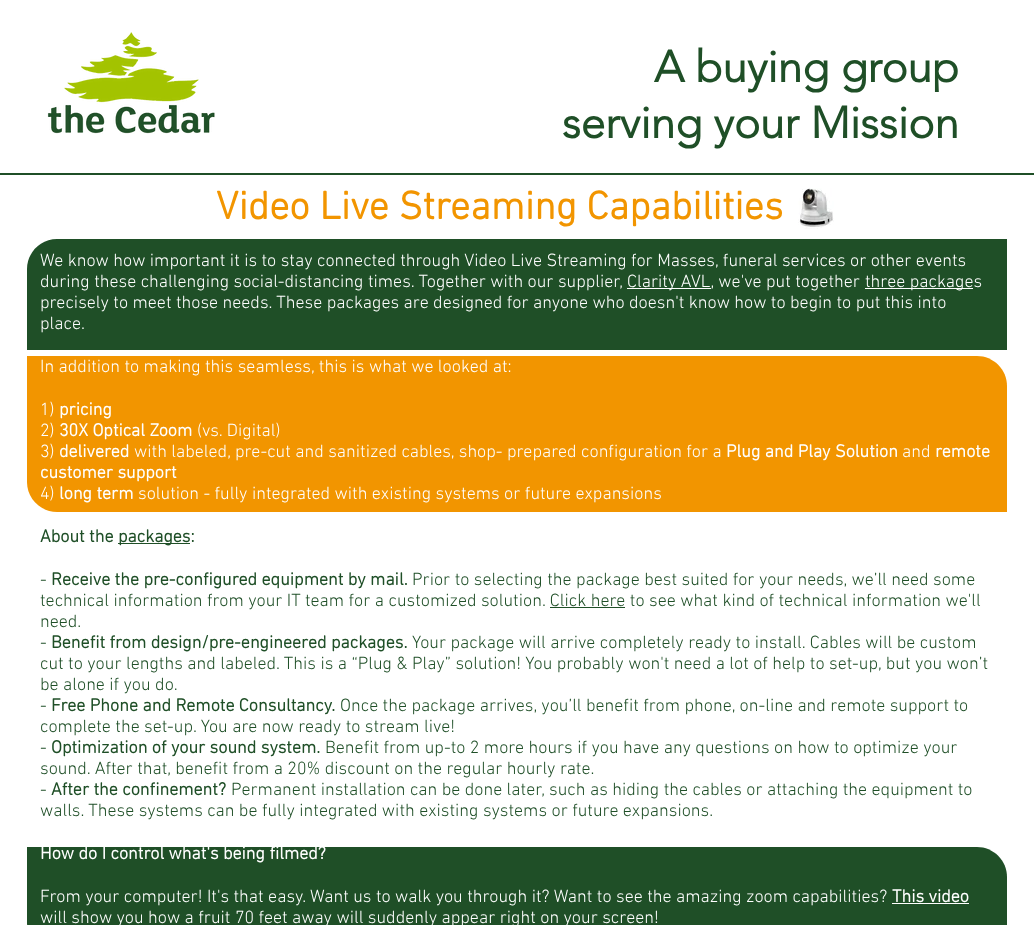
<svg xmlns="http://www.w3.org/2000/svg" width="1034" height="925">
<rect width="100%" height="100%" fill="#fff"/>
<image x="47" y="32" width="168" height="102" href="media/1.png"/>
<text x="654" y="82" style="font-family:'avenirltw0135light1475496';font-size:44px;font-weight:bold;fill:#1f4f27">A buying group</text>
<text x="562" y="138" style="font-family:'avenirltw0135light1475496';font-size:44px;font-weight:bold;fill:#1f4f27">serving your Mission</text>
<rect y="173" width="1034" height="2" fill="#1f4f27"/>
<text x="216" y="219" style="font-family:'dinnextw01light';font-size:40px;font-weight:bold;fill:#f29500">Video Live Streaming Capabilities</text>
<image x="798" y="188" width="36" height="41" href="media/2.png"/>
<path d="M57 239h950v111h-980v-81c0-16.5 13.5-30 30-30z" fill="#1f4f27"/>
<text x="40" y="266" style="font-family:'dinnextw01light';font-size:18px;font-weight:300;fill:#fff">We know how important it is to stay connected through Video Live Streaming for Masses, funeral services or other events</text>
<text x="40" y="287" style="font-family:'dinnextw01light';font-size:18px;font-weight:300;fill:#fff">during these challenging social-distancing times. Together with our supplier,</text>
<rect x="627" y="288" width="84" height="1" fill="#fff"/>
<text x="627" y="287" style="font-family:'dinnextw01light';font-size:18px;font-weight:300;fill:#fff">Clarity AVL, we've put together</text>
<rect x="865" y="288" width="108" height="1" fill="#fff"/>
<text x="865" y="287" style="font-family:'dinnextw01light';font-size:18px;font-weight:300;fill:#fff">three packages</text>
<text x="40" y="308" style="font-family:'dinnextw01light';font-size:18px;font-weight:300;fill:#fff">precisely to meet those needs. These packages are designed for anyone who doesn't know how to begin to put this into</text>
<text x="40" y="329" style="font-family:'dinnextw01light';font-size:18px;font-weight:300;fill:#fff">place.</text>
<path d="M27 356h950c16.5 0 30 13.5 30 30v126h-950c-16.5 0-30-13.5-30-30z" fill="#f29500"/>
<text x="40" y="372" style="font-family:'dinnextw01light';font-size:18px;font-weight:300;fill:#fff">In addition to making this seamless, this is what we looked at:</text>
<text x="40" y="415" style="font-family:'dinnextw01light';font-size:18px;font-weight:300;fill:#fff">1)</text>
<text x="59" y="415" style="font-family:'dinnextw01light';font-size:18px;font-weight:bold;fill:#fff">pricing</text>
<text x="40" y="436" style="font-family:'dinnextw01light';font-size:18px;font-weight:300;fill:#fff">2)</text>
<text x="59" y="436" style="font-family:'dinnextw01light';font-size:18px;font-weight:bold;fill:#fff">30X Optical Zoom</text>
<text x="197" y="436" style="font-family:'dinnextw01light';font-size:18px;font-weight:300;fill:#fff">(vs. Digital)</text>
<text x="40" y="457" style="font-family:'dinnextw01light';font-size:18px;font-weight:300;fill:#fff">3)</text>
<text x="59" y="457" style="font-family:'dinnextw01light';font-size:18px;font-weight:bold;fill:#fff">delivered</text>
<text x="134" y="457" style="font-family:'dinnextw01light';font-size:18px;font-weight:300;fill:#fff">with labeled, pre-cut and sanitized cables, shop- prepared configuration for a</text>
<text x="726" y="457" style="font-family:'dinnextw01light';font-size:18px;font-weight:bold;fill:#fff">Plug and Play Solution</text>
<text x="902" y="457" style="font-family:'dinnextw01light';font-size:18px;font-weight:300;fill:#fff">and</text>
<text x="935" y="457" style="font-family:'dinnextw01light';font-size:18px;font-weight:bold;fill:#fff">remote</text>
<text x="40" y="478" style="font-family:'dinnextw01light';font-size:18px;font-weight:bold;fill:#fff">customer support</text>
<text x="40" y="499" style="font-family:'dinnextw01light';font-size:18px;font-weight:300;fill:#fff">4)</text>
<text x="59" y="499" style="font-family:'dinnextw01light';font-size:18px;font-weight:bold;fill:#fff">long term</text>
<text x="138" y="499" style="font-family:'dinnextw01light';font-size:18px;font-weight:300;fill:#fff">solution - fully integrated with existing systems or future expansions</text>
<text x="40" y="542" style="font-family:'dinnextw01light';font-size:18px;font-weight:bold;fill:#1f4f27">About the</text>
<rect x="118" y="543" width="72" height="1" fill="#1f4f27"/>
<text x="118" y="542" style="font-family:'dinnextw01light';font-size:18px;font-weight:bold;fill:#1f4f27">packages:</text>
<text x="40" y="585" style="font-family:'dinnextw01light';font-size:18px;font-weight:300;fill:#1f4f27">-</text>
<text x="51" y="585" style="font-family:'dinnextw01light';font-size:18px;font-weight:bold;fill:#1f4f27">Receive the pre-configured equipment by mail.</text>
<text x="412" y="585" style="font-family:'dinnextw01light';font-size:18px;font-weight:300;fill:#1f4f27">Prior to selecting the package best suited for your needs, we’ll need some</text>
<text x="40" y="606" style="font-family:'dinnextw01light';font-size:18px;font-weight:300;fill:#1f4f27">technical information from your IT team for a customized solution. Click here to see what kind of technical information we'll</text>
<rect x="550" y="607" width="75" height="1" fill="#1f4f27"/>
<text x="40" y="627" style="font-family:'dinnextw01light';font-size:18px;font-weight:300;fill:#1f4f27">need.</text>
<text x="40" y="648" style="font-family:'dinnextw01light';font-size:18px;font-weight:300;fill:#1f4f27">-</text>
<text x="51" y="648" style="font-family:'dinnextw01light';font-size:18px;font-weight:bold;fill:#1f4f27">Benefit from design/pre-engineered packages.</text>
<text x="412" y="648" style="font-family:'dinnextw01light';font-size:18px;font-weight:300;fill:#1f4f27">Your package will arrive completely ready to install. Cables will be custom</text>
<text x="40" y="669" style="font-family:'dinnextw01light';font-size:18px;font-weight:300;fill:#1f4f27">cut to your lengths and labeled. This is a “Plug &amp; Play” solution! You probably won't need a lot of help to set-up, but you won’t</text>
<text x="40" y="690" style="font-family:'dinnextw01light';font-size:18px;font-weight:300;fill:#1f4f27">be alone if you do.</text>
<text x="40" y="711" style="font-family:'dinnextw01light';font-size:18px;font-weight:300;fill:#1f4f27">-</text>
<text x="51" y="711" style="font-family:'dinnextw01light';font-size:18px;font-weight:bold;fill:#1f4f27">Free Phone and Remote Consultancy.</text>
<text x="340" y="711" style="font-family:'dinnextw01light';font-size:18px;font-weight:300;fill:#1f4f27">Once the package arrives, you’ll benefit from phone, on-line and remote support to</text>
<text x="40" y="732" style="font-family:'dinnextw01light';font-size:18px;font-weight:300;fill:#1f4f27">complete the set-up. You are now ready to stream live!</text>
<text x="40" y="753" style="font-family:'dinnextw01light';font-size:18px;font-weight:300;fill:#1f4f27">-</text>
<text x="51" y="753" style="font-family:'dinnextw01light';font-size:18px;font-weight:bold;fill:#1f4f27">Optimization of your sound system.</text>
<text x="325" y="753" style="font-family:'dinnextw01light';font-size:18px;font-weight:300;fill:#1f4f27">Benefit from up-to 2 more hours if you have any questions on how to optimize your</text>
<text x="40" y="774" style="font-family:'dinnextw01light';font-size:18px;font-weight:300;fill:#1f4f27">sound. After that, benefit from a 20% discount on the regular hourly rate.</text>
<text x="40" y="795" style="font-family:'dinnextw01light';font-size:18px;font-weight:300;fill:#1f4f27">-</text>
<text x="51" y="795" style="font-family:'dinnextw01light';font-size:18px;font-weight:bold;fill:#1f4f27">After the confinement?</text>
<text x="231" y="795" style="font-family:'dinnextw01light';font-size:18px;font-weight:300;fill:#1f4f27">Permanent installation can be done later, such as hiding the cables or attaching the equipment to</text>
<text x="40" y="816" style="font-family:'dinnextw01light';font-size:18px;font-weight:300;fill:#1f4f27">walls. These systems can be fully integrated with existing systems or future expansions.</text>
<path d="M27 847h950c16.5 0 30 13.5 30 30v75h-950c-16.5 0-30-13.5-30-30z" fill="#1f4f27"/>
<text x="40" y="859" style="font-family:'dinnextw01light';font-size:18px;font-weight:bold;fill:#fff">How do I control what's being filmed?</text>
<text x="40" y="902" style="font-family:'dinnextw01light';font-size:18px;font-weight:300;fill:#fff">From your computer! It's that easy. Want us to walk you through it? Want to see the amazing zoom capabilities?</text>
<text x="892" y="902" style="font-family:'dinnextw01light';font-size:18px;font-weight:bold;fill:#fff">This video</text>
<rect x="892" y="903" width="77" height="1" fill="#fff"/>
<text x="40" y="923" style="font-family:'dinnextw01light';font-size:18px;font-weight:300;fill:#fff">will show you how a fruit 70 feet away will suddenly appear right on your screen!</text>
</svg>
